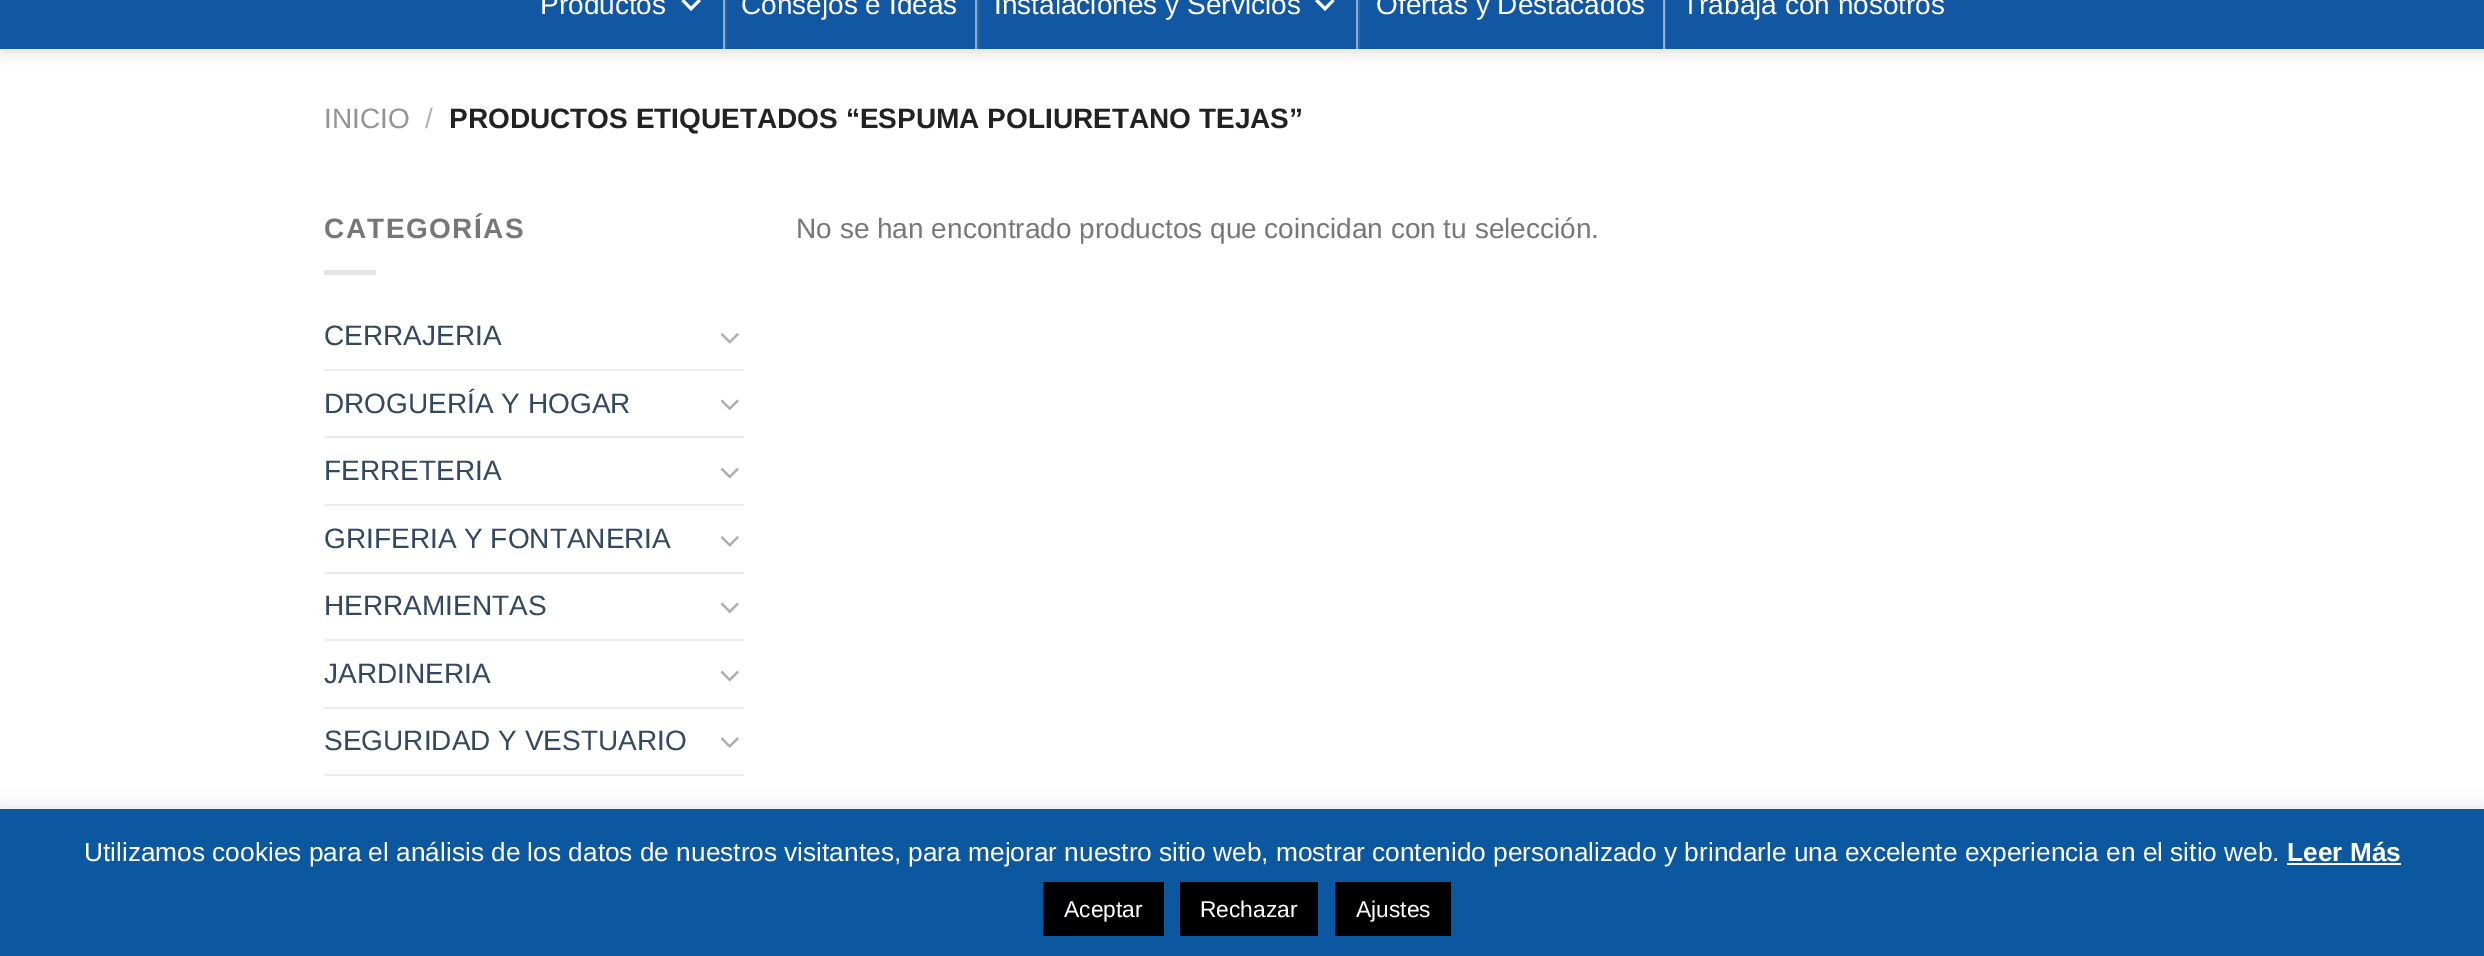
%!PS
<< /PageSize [2484 956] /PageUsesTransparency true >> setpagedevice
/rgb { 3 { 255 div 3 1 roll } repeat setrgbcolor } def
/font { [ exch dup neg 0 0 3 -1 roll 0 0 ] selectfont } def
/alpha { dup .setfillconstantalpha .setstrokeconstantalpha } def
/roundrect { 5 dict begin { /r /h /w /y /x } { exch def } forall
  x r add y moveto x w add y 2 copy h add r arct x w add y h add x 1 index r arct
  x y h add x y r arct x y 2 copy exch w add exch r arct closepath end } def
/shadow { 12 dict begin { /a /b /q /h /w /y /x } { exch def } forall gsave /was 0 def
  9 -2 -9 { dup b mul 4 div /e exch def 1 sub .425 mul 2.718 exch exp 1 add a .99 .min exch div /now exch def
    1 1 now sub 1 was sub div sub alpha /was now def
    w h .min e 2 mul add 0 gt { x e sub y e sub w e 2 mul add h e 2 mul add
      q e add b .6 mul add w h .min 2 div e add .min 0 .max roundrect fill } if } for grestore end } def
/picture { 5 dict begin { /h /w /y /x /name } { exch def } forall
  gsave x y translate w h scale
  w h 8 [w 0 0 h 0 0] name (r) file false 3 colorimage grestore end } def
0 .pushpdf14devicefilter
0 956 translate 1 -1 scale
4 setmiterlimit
255 255 255 rgb
0 0 2484 956 rectfill
0 0 0 rgb
2 -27 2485 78 0 9 0.15 shadow
17 87 162 rgb
0 0 2484 49 rectfill
138 173 209 rgb
1663 0 1 49 rectfill
255 255 255 rgb
684 -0.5 moveto 691 6.5 lineto 698 -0.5 lineto 701 1 lineto 691 11 lineto 681.5 1 lineto closepath fill
[
  [725 0 2 49 41 104 171]
  [723 0 2 49 137 172 209]
  [977 0 2 49 41 104 171]
  [975 0 2 49 137 172 209]
] { aload pop rgb rectfill } forall
255 255 255 rgb
1318 -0.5 moveto 1325 6.5 lineto 1332 -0.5 lineto 1334.5 1 lineto 1325 11 lineto 1315 1 lineto closepath fill
[
  [1358 0 2 49 41 104 171]
  [1356 0 2 49 137 172 209]
  [1665 0 1 49 41 104 171]
  [1664 0 1 49 150 181 214]
  [324 270 52 5 230 230 230]
] { aload pop rgb rectfill } forall
(img/1.rgb) 720 333 19 11 picture
236 236 236 rgb
324 369 420 2 rectfill
(img/2.rgb) 720 399 19 12 picture
324 436 420 2 rectfill
(img/3.rgb) 720 467 19 12 picture
324 504 420 2 rectfill
(img/1.rgb) 720 536 19 11 picture
324 572 420 2 rectfill
(img/2.rgb) 720 602 19 12 picture
324 639 420 2 rectfill
(img/3.rgb) 720 670 19 12 picture
324 707 420 2 rectfill
(img/4.rgb) 720 737 19 11 picture
324 774 420 2 rectfill
172 171 171 rgb
0 807 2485 149 0 9 0.3 shadow
[
  [0 809 2484 147 11 87 160]
  [2287 863 114 2 255 255 255]
  [1043 882 121 54 0 0 0]
  [1180 882 138 54 0 0 0]
  [1335 882 116 54 0 0 0]
] { aload pop rgb rectfill } forall
/LiberationSans-Regular 28 font
255 255 255 rgb
[
  [(Productos) 540 14]
  [(Consejos e Ideas) 741 14]
  [(Instalaciones y Servicios) 994 14]
  [(Ofertas y Destacados) 1376 14]
  [(Trabaja con nosotros) 1682 14]
] { aload pop moveto show } forall
148 148 148 rgb
324 128 moveto (INICIO) show
178 178 178 rgb
425 128 moveto (/) show
/LiberationSans-Bold 28 font
34 34 34 rgb
449 128 moveto (PRODUCTOS ETIQUETADOS “ESPUMA POLIURETANO TEJAS”) show
119 119 119 rgb
324 238 moveto 1.4 0 (CATEGORÍAS) ashow
/LiberationSans-Regular 28 font
51 72 98 rgb
[
  [(CERRAJERIA) 324 345]
  [(DROGUERÍA Y HOGAR) 324 413]
  [(FERRETERIA) 324 480]
  [(GRIFERIA Y FONTANERIA) 324 548]
  [(HERRAMIENTAS) 324 615]
  [(JARDINERIA) 324 683]
  [(SEGURIDAD Y VESTUARIO) 324 750]
] { aload pop moveto show } forall
119 119 119 rgb
796 238 moveto (No se han encontrado productos que coincidan con tu selección.) show
/LiberationSans-Regular 26.25 font
255 255 255 rgb
84 861 moveto (Utilizamos cookies para el análisis de los datos de nuestros visitantes, para mejorar nuestro sitio web, mostrar contenido personalizado y brindarle una excelente experiencia en el sitio web.) show
/LiberationSans-Bold 26.25 font
2287 861 moveto (Leer Más) show
/LiberationSans-Regular 22.75 font
[
  [(Aceptar) 1064 917]
  [(Rechazar) 1200 917]
  [(Ajustes) 1356 917]
] { aload pop moveto show } forall
.poppdf14devicefilter showpage
